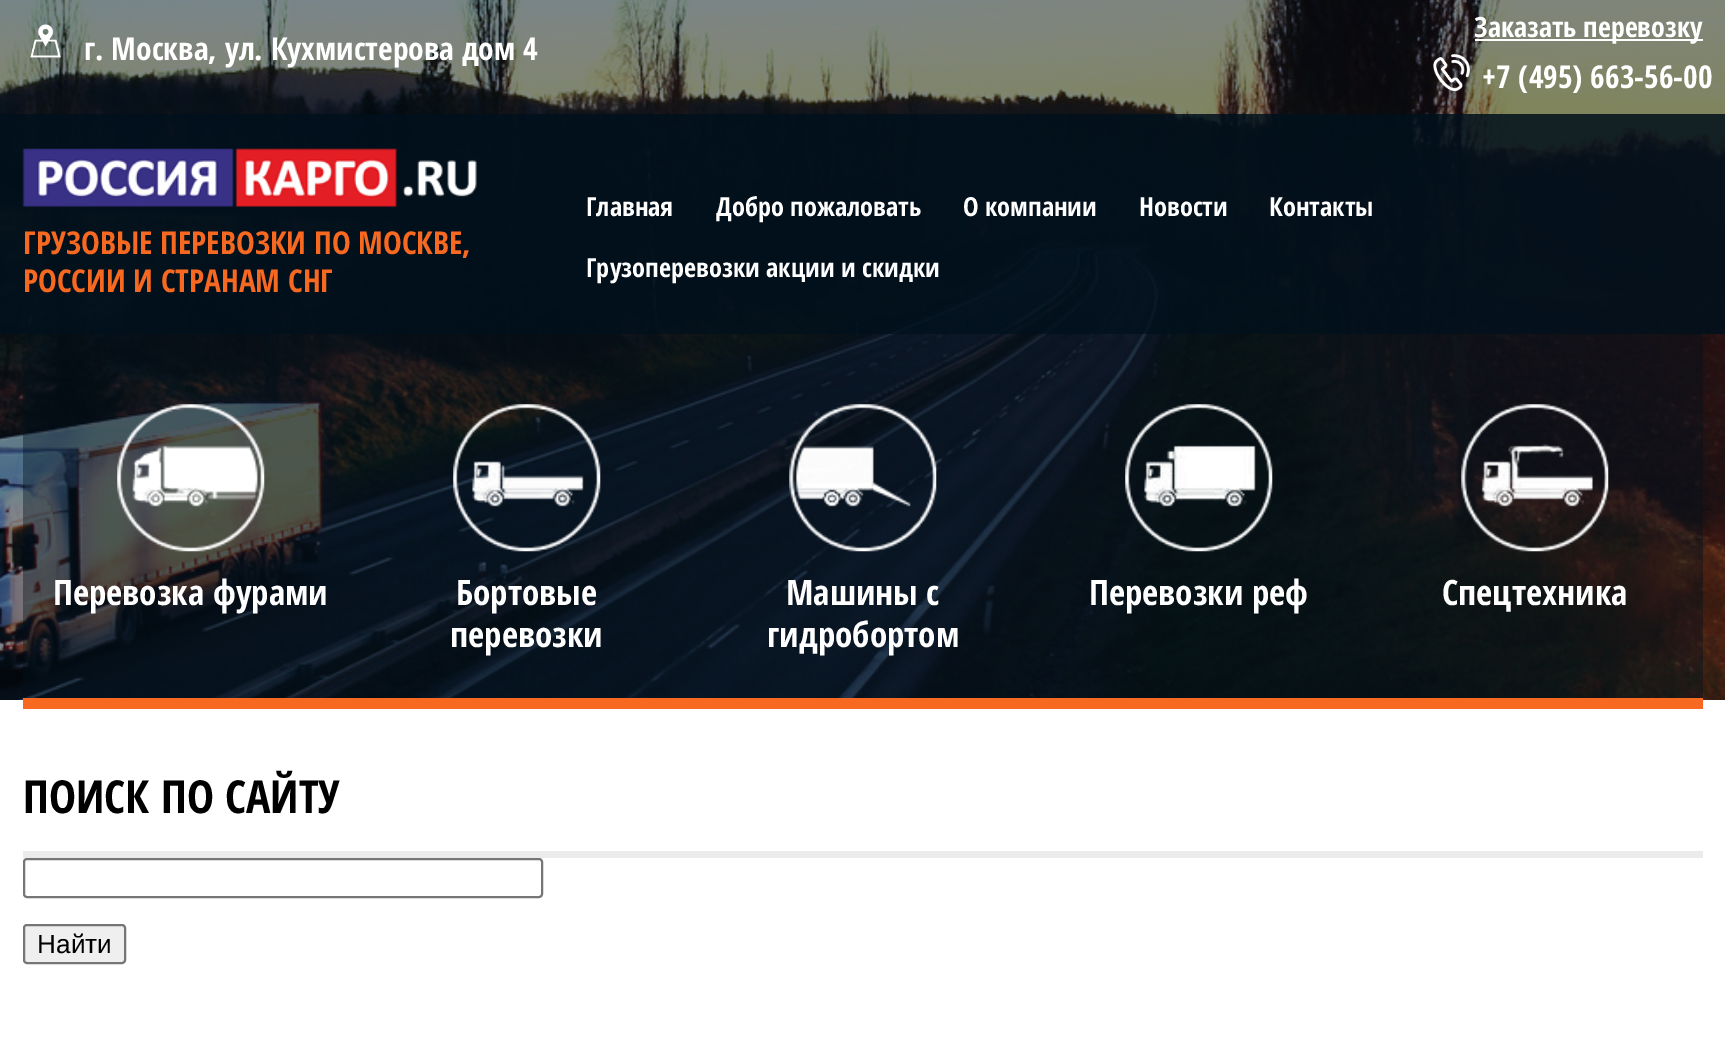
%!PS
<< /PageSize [1725 1055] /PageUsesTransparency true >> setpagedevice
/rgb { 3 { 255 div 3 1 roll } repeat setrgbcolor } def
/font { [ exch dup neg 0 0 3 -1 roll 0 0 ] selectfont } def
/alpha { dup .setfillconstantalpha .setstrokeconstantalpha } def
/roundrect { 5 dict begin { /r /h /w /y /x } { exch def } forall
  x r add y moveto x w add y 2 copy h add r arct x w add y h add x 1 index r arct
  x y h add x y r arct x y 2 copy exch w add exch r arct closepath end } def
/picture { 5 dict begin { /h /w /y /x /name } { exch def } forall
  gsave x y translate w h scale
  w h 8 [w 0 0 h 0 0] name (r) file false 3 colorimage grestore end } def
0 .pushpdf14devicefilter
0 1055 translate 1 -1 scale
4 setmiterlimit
255 255 255 rgb
0 0 1725 1055 rectfill
(img/1.rgb) 0 0 1725 700 picture
(img/2.rgb) 30 24 31 34 picture
1475 39 228 2 rectfill
(img/3.rgb) 1433 54 37 37 picture
0.85 alpha
0 16 28 rgb
0 114 1725 220 rectfill
1 alpha
(img/4.rgb) 22 148 455 59 picture
0.4 alpha
23 334 1680 364 rectfill
1 alpha
247 104 32 rgb
23 698 1680 11 rectfill
(img/5.rgb) 117 404 148 148 picture
(img/6.rgb) 453 404 148 148 picture
(img/7.rgb) 789 404 148 148 picture
(img/8.rgb) 1125 404 148 148 picture
(img/9.rgb) 1461 404 148 148 picture
235 235 235 rgb
23 851 1680 7 rectfill
118 118 118 rgb
2 setlinewidth
24 859 518 38 3 roundrect stroke
239 239 239 rgb
24 925 101 38 3 roundrect gsave fill grestore
118 118 118 rgb
stroke
/OpenSansCondensed-Bold 31.5 font
255 255 255 rgb
84 60 moveto (г. Москва, ул. Кухмистерова дом 4) show
/OpenSansCondensed-Bold 28 font
1474 37 moveto (Заказать перевозку) show
/OpenSansCondensed-Bold 31.5 font
1482 88 moveto (+7 \(495\) 663-56-00) show
247 104 32 rgb
23 254 moveto (ГРУЗОВЫЕ ПЕРЕВОЗКИ ПО МОСКВЕ,) show
23 292 moveto (РОССИИ И СТРАНАМ СНГ) show
/OpenSansCondensed-Bold 26.25 font
255 255 255 rgb
[
  [(Главная) 586 216]
  [(Добро пожаловать) 716 216]
  [(О компании) 963 216]
  [(Новости) 1139 216]
  [(Контакты) 1269 216]
  [(Грузоперевозки акции и скидки) 586 277]
] { aload pop moveto show } forall
/OpenSansCondensed-Bold 35 font
[
  [(Перевозка фурами) 53 605]
  [(Бортовые) 456 605]
  [(перевозки) 450 647]
  [(Машины с) 786 605]
  [(гидробортом) 767 647]
  [(Перевозки реф) 1089 605]
  [(Спецтехника) 1442 605]
] { aload pop moveto show } forall
/OpenSansCondensed-Bold 45.5 font
0 0 0 rgb
23 813 moveto (ПОИСК ПО САЙТУ) show
/LiberationSans-Regular 26.25 font
37 953 moveto (Найти) show
.poppdf14devicefilter showpage
